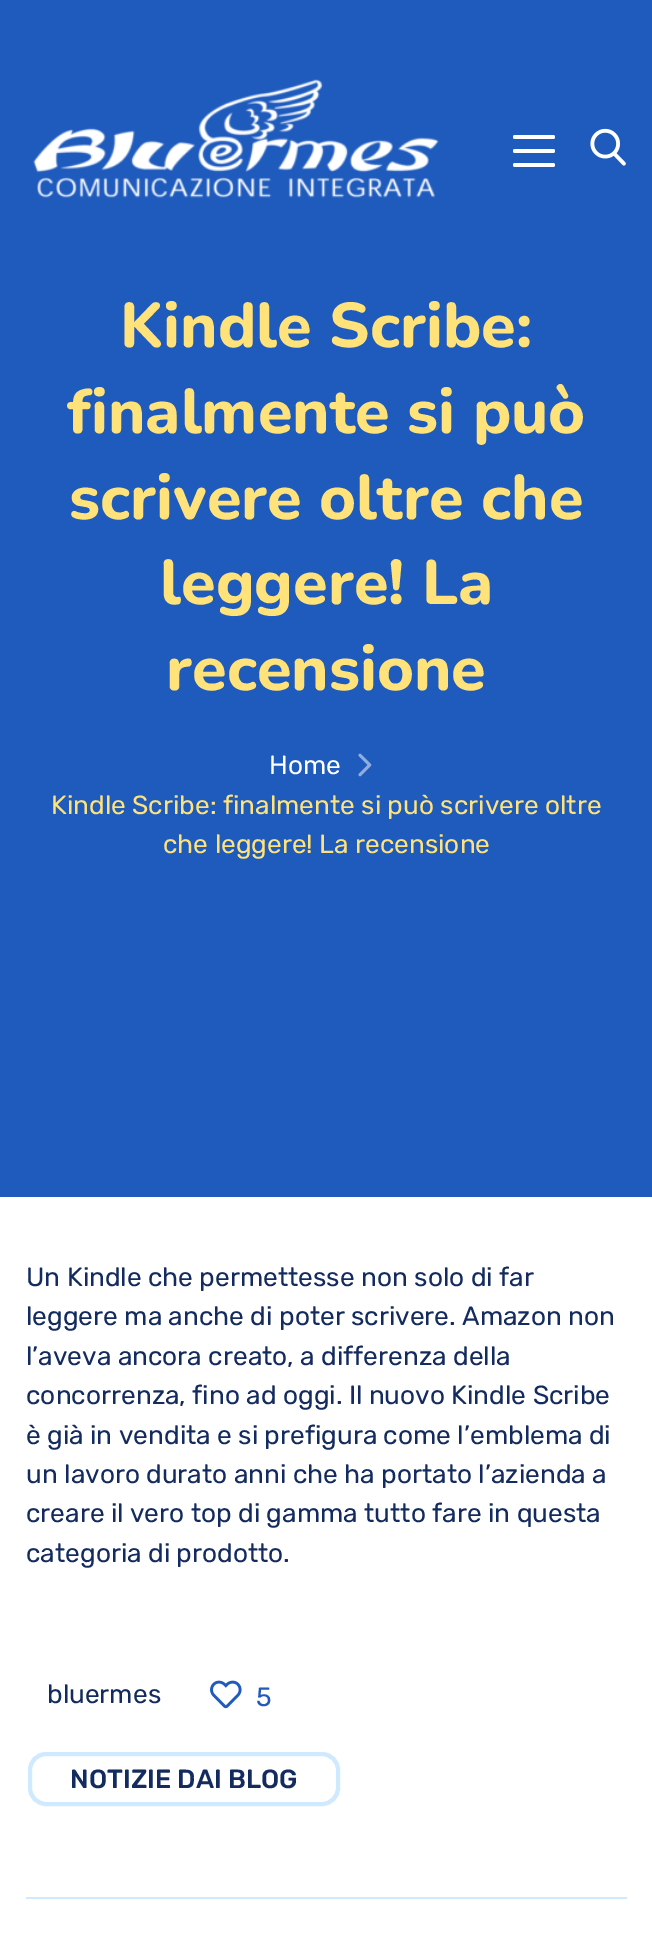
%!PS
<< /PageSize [652 1954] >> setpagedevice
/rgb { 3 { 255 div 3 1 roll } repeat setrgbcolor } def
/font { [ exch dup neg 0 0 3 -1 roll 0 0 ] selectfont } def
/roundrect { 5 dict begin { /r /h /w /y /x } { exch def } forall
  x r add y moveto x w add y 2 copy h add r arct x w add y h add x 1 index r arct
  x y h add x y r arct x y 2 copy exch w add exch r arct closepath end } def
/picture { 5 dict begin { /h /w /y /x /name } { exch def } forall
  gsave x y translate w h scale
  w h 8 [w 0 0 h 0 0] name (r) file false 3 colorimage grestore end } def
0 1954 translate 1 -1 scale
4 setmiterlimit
255 255 255 rgb
0 0 652 1954 rectfill
31 91 189 rgb
0 0 652 1197 rectfill
(img/1.rgb) 33 79 406 119 picture
255 255 255 rgb
513 149 42 4 2 roundrect fill
513 135 42 4 2 roundrect fill
513 163 42 4 2 roundrect fill
(img/2.rgb) 590 128 36 38 picture
(img/3.rgb) 358 753 14 24 picture
(img/4.rgb) 210 1680 32 29 picture
207 233 255 rgb
4 setlinewidth
30 1754 308 50 16 roundrect stroke
26 1897 601 2 rectfill
/Nunito-ExtraBold 63 font
255 226 122 rgb
[
  [(Kindle Scribe:) 120 347]
  [(finalmente si può) 67 433]
  [(scrivere oltre che) 69 519]
  [(leggere! La) 160 604]
  [(recensione) 166 690]
] { aload pop moveto show } forall
/Rubik-Regular 26.25 font
255 255 255 rgb
269 774 moveto (Home) show
255 226 122 rgb
51 814 moveto (Kindle Scribe: finalmente si può scrivere oltre) show
163 853 moveto (che leggere! La recensione) show
20 43 95 rgb
[
  [(Un Kindle che permettesse non solo di far) 26 1286]
  [(leggere ma anche di poter scrivere. Amazon non) 26 1325]
  [(l’aveva ancora creato, a differenza della) 26 1365]
  [(concorrenza, fino ad oggi. Il nuovo Kindle Scribe) 26 1404]
  [(è già in vendita e si prefigura come l’emblema di) 26 1444]
  [(un lavoro durato anni che ha portato l’azienda a) 26 1483]
  [(creare il vero top di gamma tutto fare in questa) 26 1522]
  [(categoria di prodotto.) 26 1562]
  [(bluermes) 47 1703]
] { aload pop moveto show } forall
31 90 188 rgb
256 1706 moveto (5) show
/Rubik-Medium 26.25 font
20 43 95 rgb
70 1788 moveto (NOTIZIE DAI BLOG) show
showpage
